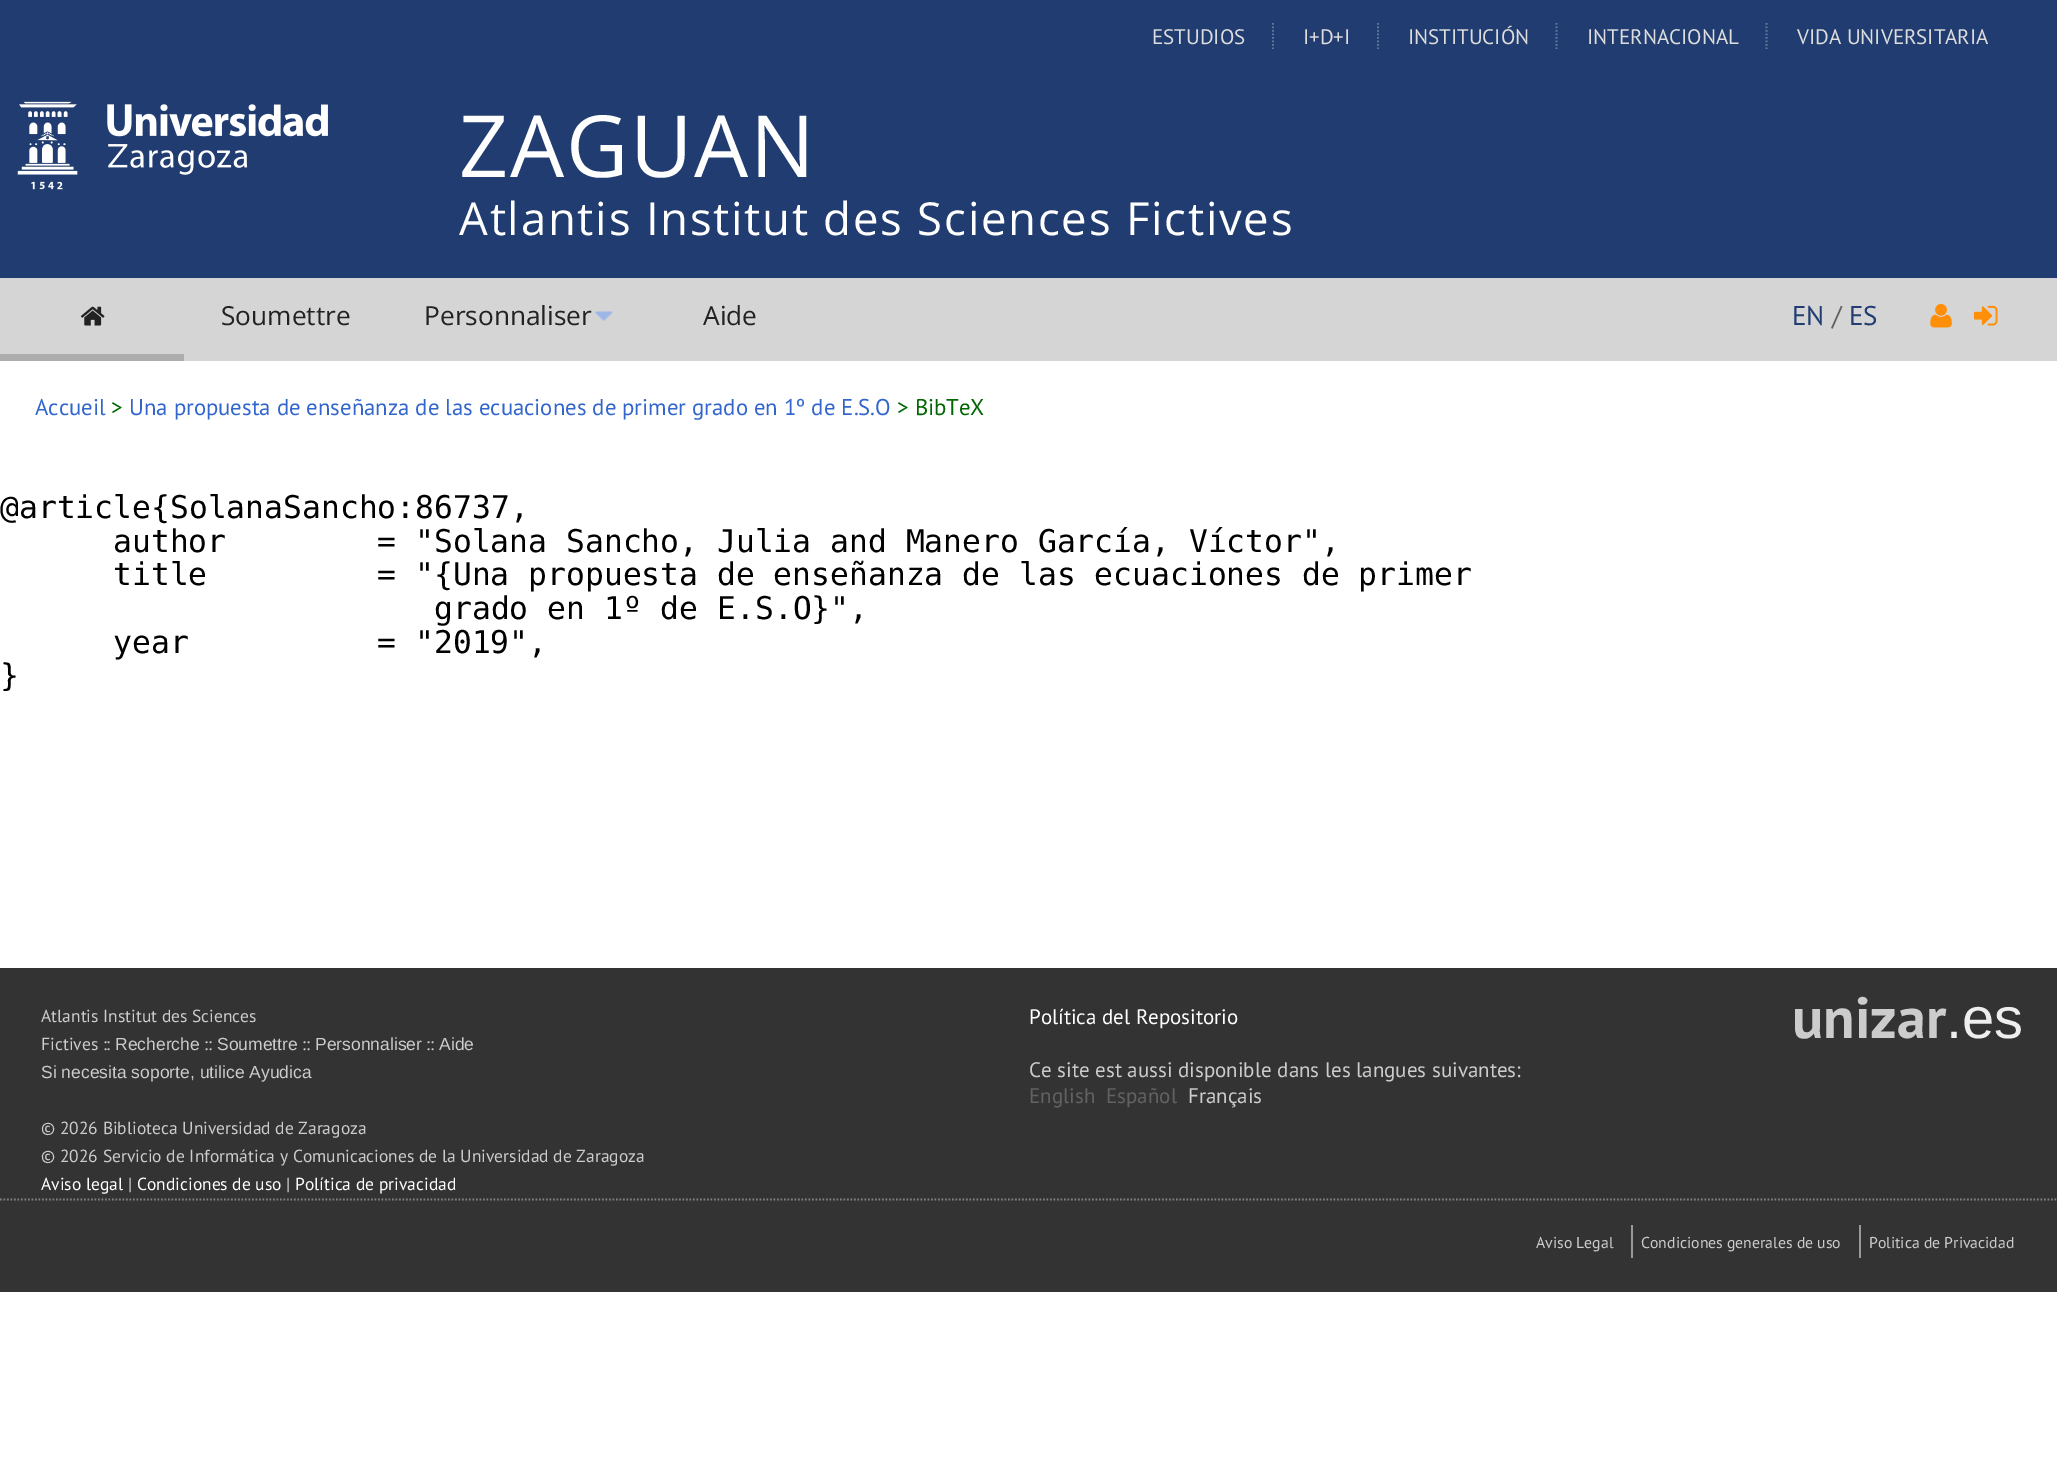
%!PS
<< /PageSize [2057 1462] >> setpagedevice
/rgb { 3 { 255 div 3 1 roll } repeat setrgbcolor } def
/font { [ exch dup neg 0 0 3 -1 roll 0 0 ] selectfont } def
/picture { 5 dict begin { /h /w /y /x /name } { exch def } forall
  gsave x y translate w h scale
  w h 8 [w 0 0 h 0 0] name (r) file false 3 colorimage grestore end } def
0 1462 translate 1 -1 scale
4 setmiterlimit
255 255 255 rgb
0 0 2057 1462 rectfill
33 60 112 rgb
0 0 2057 278 rectfill
100 119 157 rgb
1.8 setlinewidth
[1.75 1.75] 0 setdash
1273 23 moveto 1273 49 lineto stroke
1378 23 moveto 1378 49 lineto stroke
1556.5 23 moveto 1556.5 49 lineto stroke
1766.5 23 moveto 1766.5 49 lineto stroke
(img/1.rgb) 17 101 311 89 picture
213 213 213 rgb
0 278 2057 83 rectfill
173 173 173 rgb
0 354 184 7 rectfill
(img/2.rgb) 80 306 25 20 picture
(img/3.rgb) 594 311 19 10 picture
(img/4.rgb) 1930 304 22 24 picture
(img/5.rgb) 1974 305 24 21 picture
51 51 51 rgb
0 968 2057 324 rectfill
128 128 128 rgb
-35 1199.5 moveto 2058 1199.5 lineto stroke
153 153 153 rgb
1631 1225 2 33 rectfill
1859 1225 2 33 rectfill
/PTSans-Regular 21 font
221 221 221 rgb
[
  [(ESTUDIOS) 1152 44]
  [(I+D+I) 1303 44]
  [(INSTITUCIÓN) 1408 44]
  [(INTERNACIONAL) 1587 44]
  [(VIDA UNIVERSITARIA) 1797 44]
] { aload pop moveto show } forall
/OpenSans-Regular 85.75 font
255 255 255 rgb
459 177 moveto 1.75 0 (ZAGUAN) ashow
/OpenSans-Regular 45.5 font
459 235 moveto 1.75 0 (Atlantis Institut des Sciences Fictives) ashow
/OpenSans-Regular 26.25 font
34 34 34 rgb
[
  [(Soumettre) 221 325]
  [(Personnaliser) 424 325]
  [(Aide) 703 325]
] { aload pop moveto show } forall
/PTSans-Regular 27 font
34 61 114 rgb
1792 325 moveto (EN) show
98 98 98 rgb
1832 325 moveto (/) show
34 61 114 rgb
1849 325 moveto (ES) show
/PTSans-Regular 22.75 font
51 102 204 rgb
35 415 moveto (Accueil) show
0 102 0 rgb
111 415 moveto (>) show
51 102 204 rgb
129 415 moveto (Una propuesta de enseñanza de las ecuaciones de primer grado en 1º de E.S.O) show
0 102 0 rgb
897 415 moveto (> BibTeX) show
/DejaVuSansMono-Regular 31.35 font
0 0 0 rgb
[
  [(@article{SolanaSancho:86737,) 0 518]
  [(author        = "Solana Sancho, Julia and Manero García, Víctor",) 113 552]
  [(title         = "{Una propuesta de enseñanza de las ecuaciones de primer) 113 585]
  [(grado en 1º de E.S.O}",) 434 619]
  [(year          = "2019",) 113 653]
  [(}) 0 686]
] { aload pop moveto show } forall
/PTSans-Regular 17.5 font
204 204 204 rgb
41 1022 moveto (Atlantis Institut des Sciences) show
41 1050 moveto (Fictives ::) show
/LiberationSans-Regular 17.5 font
115 1050 moveto (Recherche) show
/PTSans-Regular 17.5 font
204 1050 moveto (::) show
/LiberationSans-Regular 17.5 font
217 1050 moveto (Soumettre) show
/PTSans-Regular 17.5 font
302 1050 moveto (::) show
/LiberationSans-Regular 17.5 font
315 1050 moveto (Personnaliser) show
/PTSans-Regular 17.5 font
426 1050 moveto (::) show
/LiberationSans-Regular 17.5 font
439 1050 moveto (Aide) show
41 1078 moveto (Si necesita soporte, utilice Ayudica) show
/PTSans-Regular 17.5 font
41 1134 moveto (© 2026 Biblioteca Universidad de Zaragoza) show
41 1162 moveto (© 2026 Servicio de Informática y Comunicaciones de la Universidad de Zaragoza) show
255 255 255 rgb
41 1190 moveto (Aviso legal) show
204 204 204 rgb
128 1190 moveto (|) show
255 255 255 rgb
137 1190 moveto (Condiciones de uso) show
204 204 204 rgb
286 1190 moveto (|) show
255 255 255 rgb
295 1190 moveto (Política de privacidad) show
/PTSans-Regular 21 font
1029 1024 moveto (Política del Repositorio) show
204 204 204 rgb
1029 1077 moveto (Ce site est aussi disponible dans les langues suivantes:) show
98 98 98 rgb
1029 1103 moveto (English) show
1106 1103 moveto (Español) show
204 204 204 rgb
1188 1103 moveto (Français) show
/PTSans-Bold 58 font
1792 1038 moveto (unizar) show
/LiberationSans-Regular 58 font
238 238 238 rgb
1946 1038 moveto (.es) show
/PTSans-Regular 15.75 font
204 204 204 rgb
[
  [(Aviso Legal) 1536 1248]
  [(Condiciones generales de uso) 1641 1248]
  [(Politica de Privacidad) 1869 1248]
] { aload pop moveto show } forall
showpage
